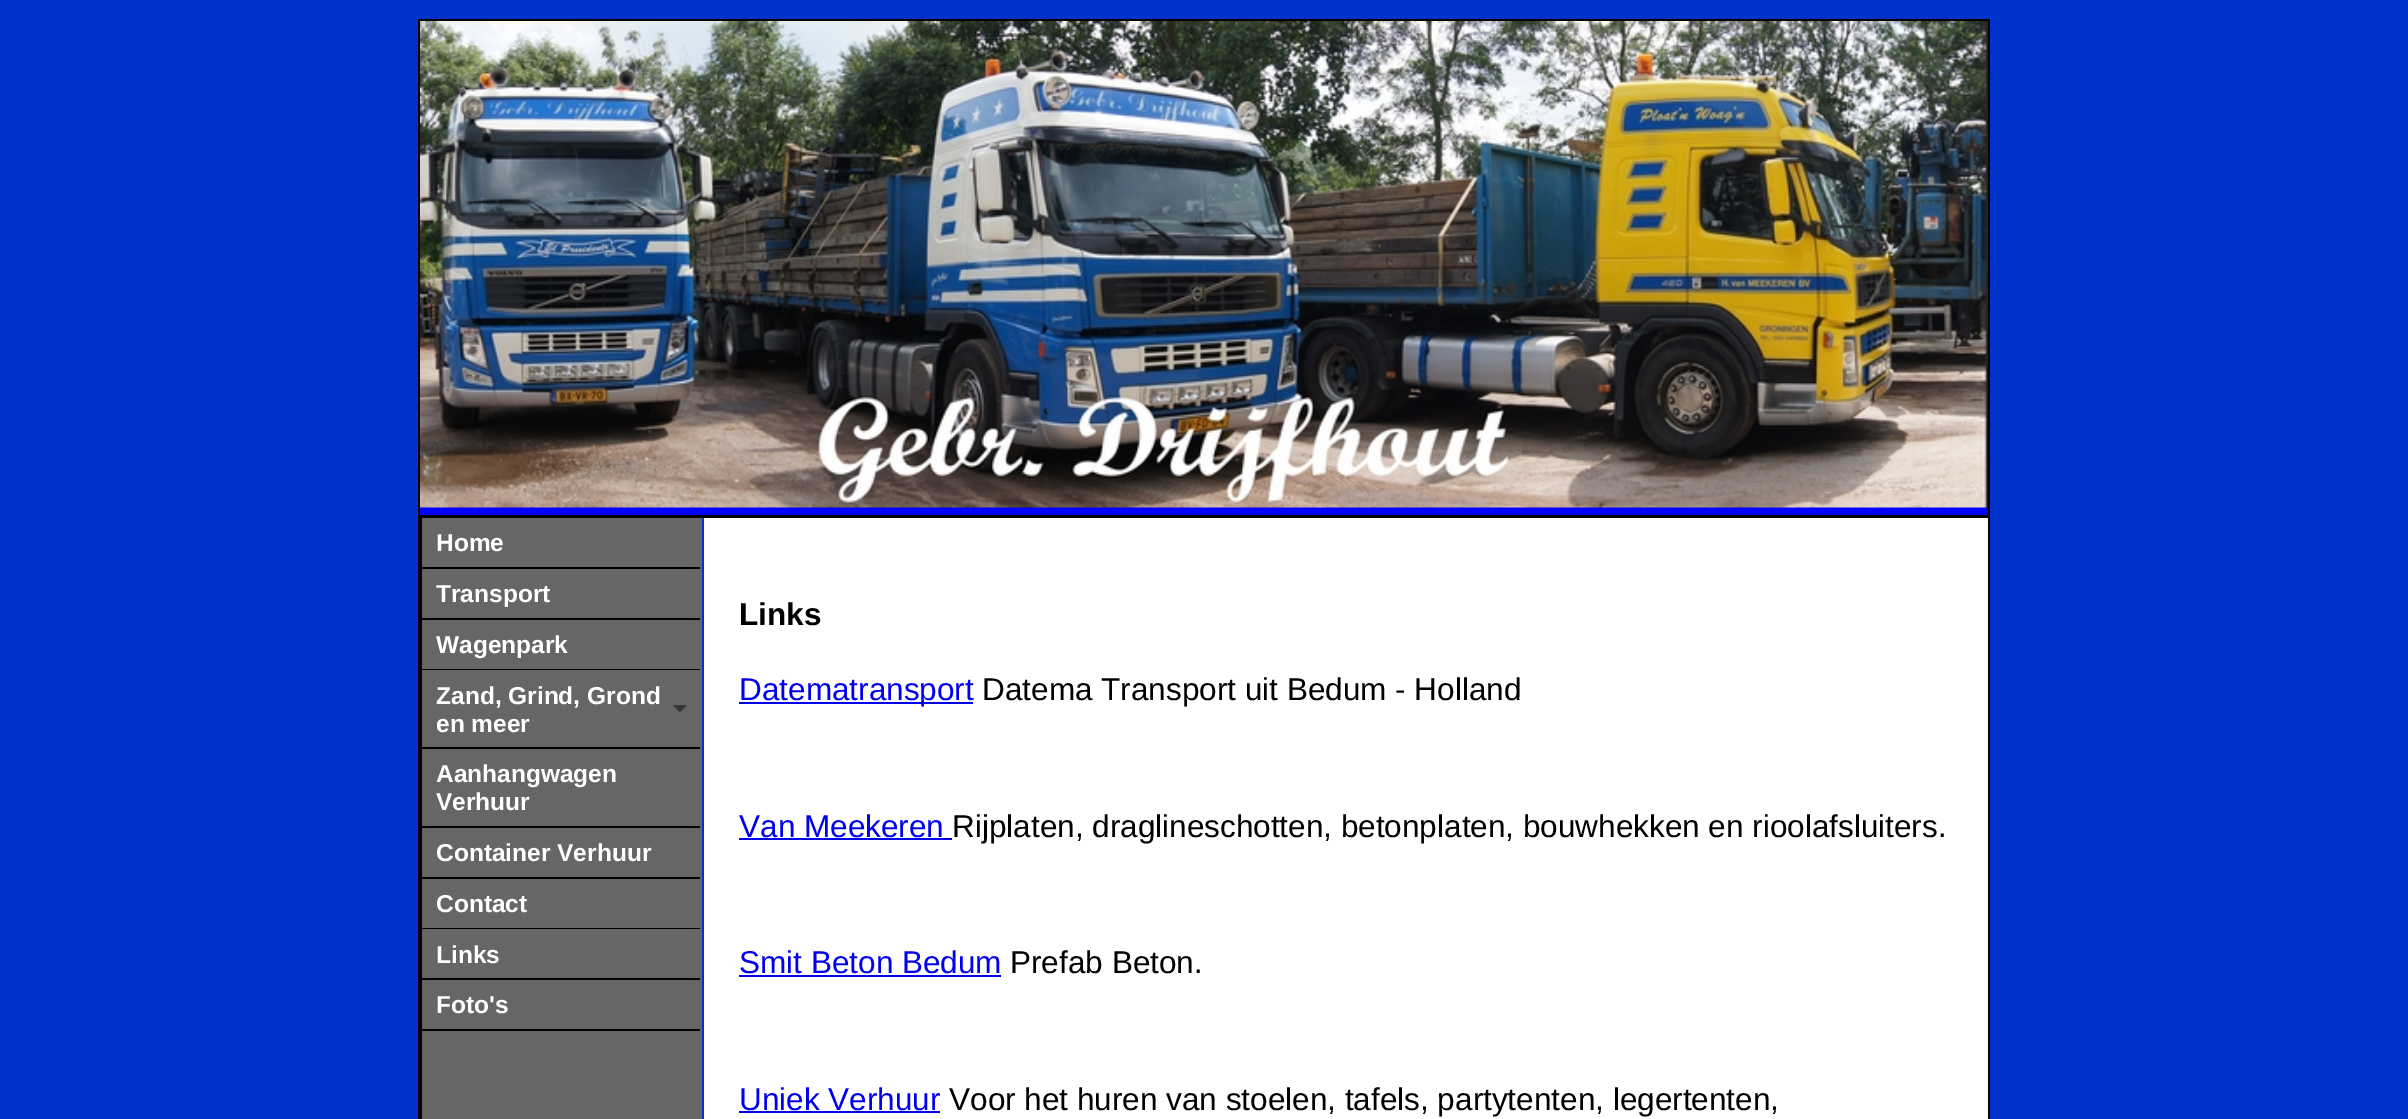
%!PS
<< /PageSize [2408 1119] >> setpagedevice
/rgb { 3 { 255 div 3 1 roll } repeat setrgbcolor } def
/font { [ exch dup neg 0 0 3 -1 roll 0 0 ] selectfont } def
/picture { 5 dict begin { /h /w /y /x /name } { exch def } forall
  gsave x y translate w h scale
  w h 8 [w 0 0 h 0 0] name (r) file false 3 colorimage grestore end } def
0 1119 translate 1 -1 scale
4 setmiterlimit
0 51 204 rgb
0 0 2408 1119 rectfill
0 0 255 rgb
420 507 1568 8 rectfill
(img/1.rgb) 420 21 1568 487 picture
[
  [418 19 1572 2 0 0 0]
  [1988 19 2 496 0 0 0]
  [418 19 2 496 0 0 0]
  [418 515 1572 1 0 0 0]
  [1988 515 2 604 0 0 0]
  [418 515 2 604 0 0 0]
  [420 516 1568 2 0 0 0]
  [420 516 2 603 0 0 0]
  [422 518 280 601 102 102 102]
  [422 567 278 2 0 0 0]
  [422 618 278 2 0 0 0]
  [422 669 278 1 0 0 0]
] { aload pop rgb rectfill } forall
(img/2.rgb) 673 705 13 8 picture
[
  [422 747 278 2 0 0 0]
  [422 826 278 2 0 0 0]
  [422 877 278 2 0 0 0]
  [422 928 278 1 0 0 0]
  [422 978 278 2 0 0 0]
  [422 1029 278 2 0 0 0]
  [704 518 1284 601 255 255 255]
  [739 702 234 2 0 0 238]
  [739 838 213 2 0 0 238]
  [739 975 262 2 0 0 238]
  [739 1111 201 2 0 0 238]
] { aload pop rgb rectfill } forall
/LiberationSans-Bold 24.5 font
255 255 255 rgb
[
  [(Home) 436 551]
  [(Transport) 436 602]
  [(Wagenpark) 436 653]
  [(Zand, Grind, Grond) 436 704]
  [(en meer) 436 732]
  [(Aanhangwagen) 436 782]
  [(Verhuur) 436 810]
  [(Container Verhuur) 436 861]
  [(Contact) 436 912]
  [(Links) 436 963]
  [(Foto's) 436 1013]
] { aload pop moveto show } forall
/LiberationSans-Bold 31.5 font
0 0 0 rgb
739 625 moveto (Links) show
/LiberationSans-Regular 31.5 font
0 0 238 rgb
739 700 moveto (Datematransport) show
0 0 0 rgb
982 700 moveto (Datema Transport uit Bedum - Holland) show
0 0 238 rgb
739 837 moveto (Van Meekeren) show
0 0 0 rgb
952 837 moveto (Rijplaten, draglineschotten, betonplaten, bouwhekken en rioolafsluiters.) show
0 0 238 rgb
739 973 moveto (Smit Beton Bedum) show
0 0 0 rgb
1010 973 moveto (Prefab Beton.) show
0 0 238 rgb
739 1110 moveto (Uniek Verhuur) show
0 0 0 rgb
949 1110 moveto (Voor het huren van stoelen, tafels, partytenten, legertenten,) show
showpage
